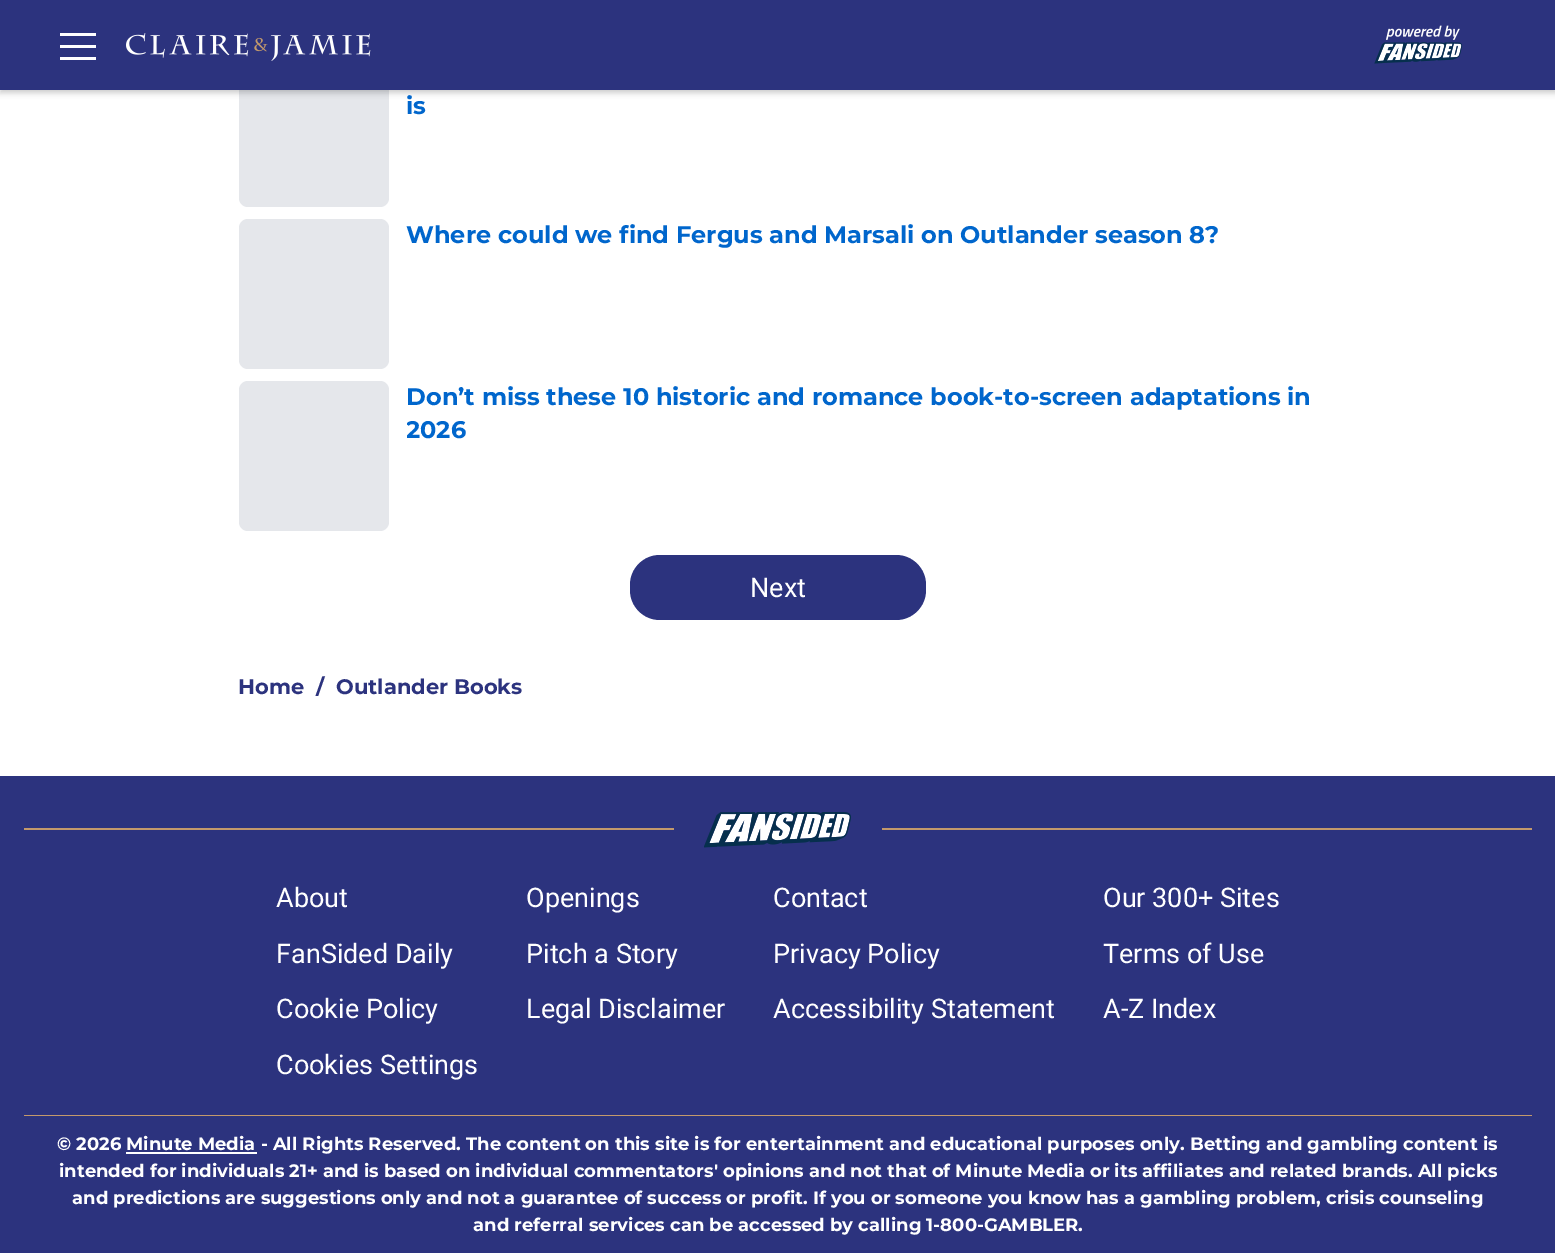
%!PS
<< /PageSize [1555 1253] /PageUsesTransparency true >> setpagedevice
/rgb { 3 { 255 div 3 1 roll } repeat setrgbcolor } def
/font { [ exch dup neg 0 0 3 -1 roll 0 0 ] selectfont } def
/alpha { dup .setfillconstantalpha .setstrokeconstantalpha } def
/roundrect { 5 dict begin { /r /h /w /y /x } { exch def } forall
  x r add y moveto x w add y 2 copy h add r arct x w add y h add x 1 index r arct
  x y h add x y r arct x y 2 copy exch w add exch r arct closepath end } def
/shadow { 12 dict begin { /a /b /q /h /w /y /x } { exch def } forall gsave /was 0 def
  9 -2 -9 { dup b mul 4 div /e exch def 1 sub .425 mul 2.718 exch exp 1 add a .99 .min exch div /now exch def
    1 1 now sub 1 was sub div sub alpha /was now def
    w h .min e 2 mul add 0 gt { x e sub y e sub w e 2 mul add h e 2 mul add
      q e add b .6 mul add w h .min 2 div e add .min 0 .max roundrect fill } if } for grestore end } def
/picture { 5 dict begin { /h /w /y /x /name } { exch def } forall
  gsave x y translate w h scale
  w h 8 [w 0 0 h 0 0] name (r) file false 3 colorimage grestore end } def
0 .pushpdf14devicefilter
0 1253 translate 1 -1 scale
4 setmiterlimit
255 255 255 rgb
0 0 1555 1253 rectfill
229 231 235 rgb
239 57 150 150 9 roundrect fill
0 0 0 rgb
0 3 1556 90 0 3 0.2 shadow
[
  [0 0 1555 90 44 51 126]
  [60 33 36 3 255 255 255]
  [60 45 36 3 255 255 255]
  [60 57 36 3 255 255 255]
] { aload pop rgb rectfill } forall
(img/1.rgb) 126 33 245 28 picture
(img/2.rgb) 1374 25 89 39 picture
229 231 235 rgb
239 219 150 150 9 roundrect fill
239 381 150 150 9 roundrect fill
44 51 126 rgb
630 555 296 65 30 roundrect fill
0 776 1555 477 rectfill
195 153 107 rgb
24 828 650 2 rectfill
(img/3.rgb) 704 812 147 36 picture
[
  [882 828 650 2 195 153 107]
  [24 1115 1508 1 195 153 107]
  [126 1152 131 2 255 255 255]
] { aload pop rgb rectfill } forall
/Montserrat-Thin 24 font
0 102 204 rgb
[
  [(is) 406 114]
  [(Where could we find Fergus and Marsali on Outlander season 8?) 406 243]
  [(Don’t miss these 10 historic and romance book-to-screen adaptations in) 406 405]
] { aload pop moveto show } forall
gsave
407 381 912 68 rectclip
406 438 moveto (2026) show
grestore
/Roboto-Regular 27 font
255 255 255 rgb
750 597 moveto (Next) show
/Montserrat-Thin 21 font
44 51 126 rgb
[
  [(Home) 238 694]
  [(/) 316 694]
  [(Outlander Books) 336 694]
] { aload pop moveto show } forall
/Roboto-Regular 27 font
255 255 255 rgb
[
  [(About) 276 907]
  [(Openings) 526 907]
  [(Contact) 773 907]
  [(Our 300+ Sites) 1103 907]
  [(FanSided Daily) 276 963]
  [(Pitch a Story) 526 963]
  [(Privacy Policy) 773 963]
  [(Terms of Use) 1103 963]
  [(Cookie Policy) 276 1018]
  [(Legal Disclaimer) 526 1018]
  [(Accessibility Statement) 773 1018]
  [(A-Z Index) 1103 1018]
  [(Cookies Settings) 276 1074]
] { aload pop moveto show } forall
/Montserrat-Thin 18 font
[
  [(© 2026 Minute Media - All Rights Reserved. The content on this site is for entertainment and educational purposes only. Betting and gambling content is) 57 1150]
  [(intended for individuals 21+ and is based on individual commentators' opinions and not that of Minute Media or its affiliates and related brands. All picks) 59 1177]
  [(and predictions are suggestions only and not a guarantee of success or profit. If you or someone you know has a gambling problem, crisis counseling) 72 1204]
  [(and referral services can be accessed by calling 1-800-GAMBLER.) 473 1231]
] { aload pop moveto show } forall
.poppdf14devicefilter showpage
